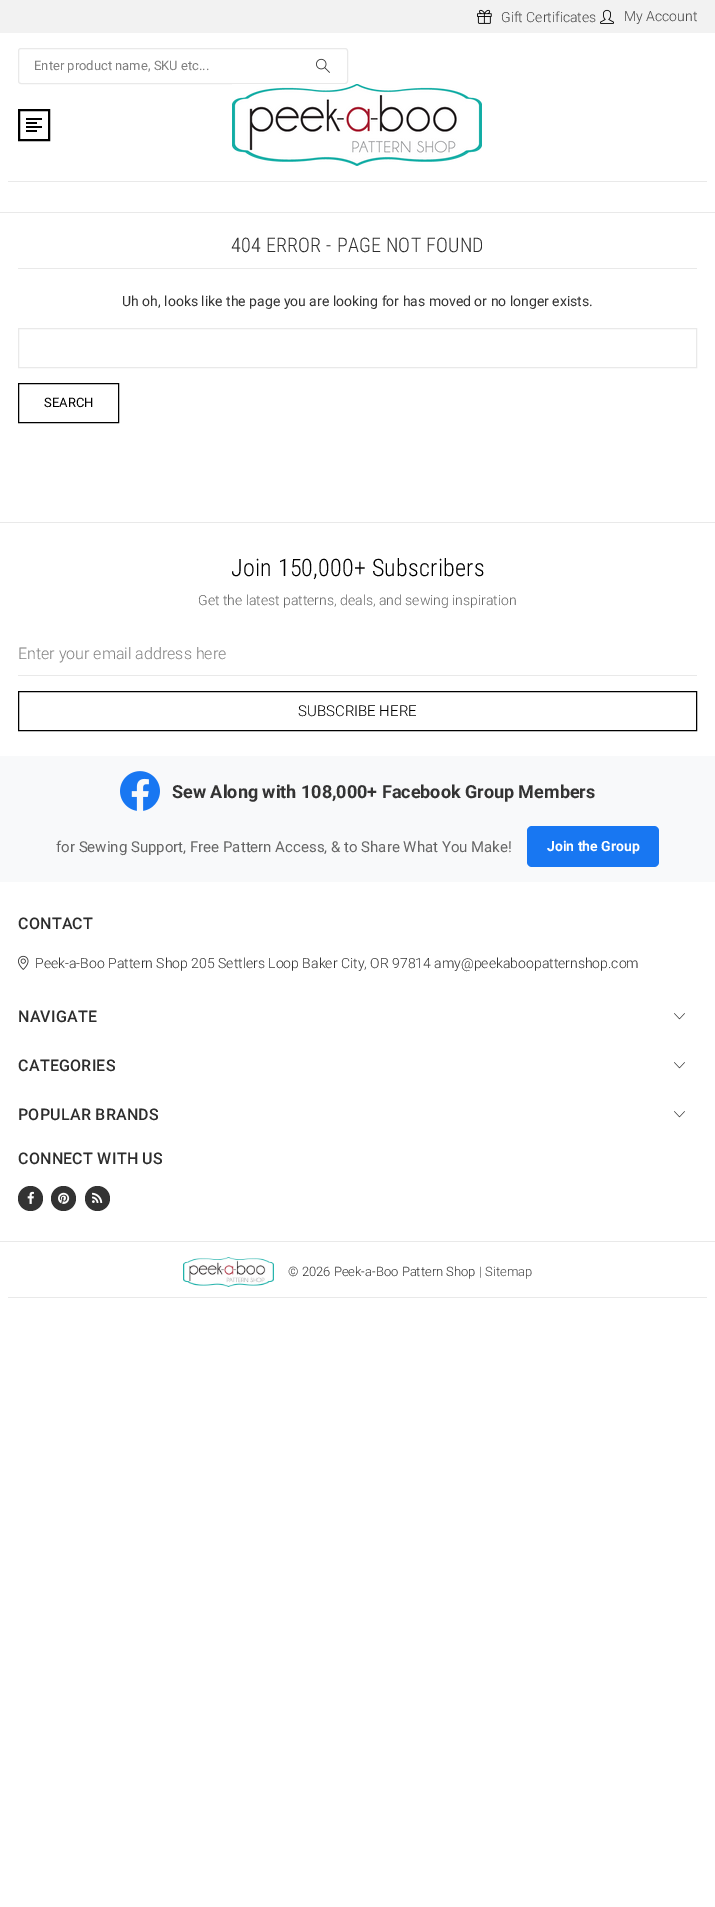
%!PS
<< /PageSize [715 1907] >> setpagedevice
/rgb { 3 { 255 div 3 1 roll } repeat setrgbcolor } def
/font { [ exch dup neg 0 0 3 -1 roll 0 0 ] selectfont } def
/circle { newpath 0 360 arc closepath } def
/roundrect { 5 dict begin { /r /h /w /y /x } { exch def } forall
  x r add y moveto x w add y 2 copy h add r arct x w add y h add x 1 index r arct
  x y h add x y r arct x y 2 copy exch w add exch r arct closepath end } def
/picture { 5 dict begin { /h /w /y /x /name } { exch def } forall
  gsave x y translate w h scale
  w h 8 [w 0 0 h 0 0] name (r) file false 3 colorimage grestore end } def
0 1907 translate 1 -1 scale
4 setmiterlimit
255 255 255 rgb
0 0 715 1907 rectfill
233 233 233 rgb
0 212 715 1 rectfill
242 242 242 rgb
0 0 715 33 rectfill
(img/1.rgb) 477 9 15 15 picture
(img/2.rgb) 600 9 14 15 picture
233 233 233 rgb
18.5 48.5 329 35 2.5 roundrect stroke
(img/3.rgb) 316 58 14 15 picture
8 181 699 1 rectfill
0 0 0 rgb
2 setlinewidth
19 110 30 30 rectstroke
[
  [26 118 16 2 0 0 0]
  [26 126 16 2 0 0 0]
  [26 122 11 2 0 0 0]
  [26 130 11 2 0 0 0]
] { aload pop rgb rectfill } forall
(img/4.rgb) 232 84 250 82 picture
233 233 233 rgb
18 268 679 1 rectfill
1 setlinewidth
18.5 328.5 678 39 rectstroke
0 0 0 rgb
18.5 383.5 100 39 rectstroke
233 233 233 rgb
0 522 715 1 rectfill
18 675 679 1 rectfill
0 0 0 rgb
18.5 691.5 678 39 rectstroke
248 249 250 rgb
0 756 715 126 rectfill
(img/5.rgb) 120 771 40 40 picture
24 119 242 rgb
527 826 132 41 5 roundrect fill
(img/6.rgb) 18 955 11 15 picture
(img/7.rgb) 674 1013 11 7 picture
(img/7.rgb) 674 1062 11 7 picture
(img/7.rgb) 674 1111 11 7 picture
51 51 51 rgb
30.5 1198.5 12.5 circle fill
(img/8.rgb) 27 1191 7 13 picture
63.5 1198.5 12.5 circle fill
(img/9.rgb) 58 1192 12 12 picture
97.5 1198.5 12.5 circle fill
(img/10.rgb) 92 1192 11 11 picture
233 233 233 rgb
0 1241 715 1 rectfill
8 1297 699 1 rectfill
(img/11.rgb) 183 1257 91 30 picture
/Roboto-Light 14 font
71 71 71 rgb
501 22 moveto (Gift Certificates) show
624 21 moveto (My Account) show
/Roboto-Regular 13 font
128 128 128 rgb
34 70 moveto (Enter product name, SKU etc...) show
/RobotoCondensed-Light 20 font
45 45 45 rgb
231 252 moveto 0.25 0 (404 ERROR - PAGE NOT FOUND) ashow
/Roboto-Regular 14 font
51 51 51 rgb
122 306 moveto (Uh oh, looks like the page you are looking for has moved or no longer exists.) show
/Roboto-Regular 13 font
0 0 0 rgb
44 407 moveto (SEARCH) show
/RobotoCondensed-Light 24 font
231 576 moveto 0.25 0 (Join 150,000+ Subscribers) ashow
/Roboto-Light 14 font
102 102 102 rgb
198 605 moveto (Get the latest patterns, deals, and sewing inspiration) show
/Roboto-Light 16 font
128 128 128 rgb
18 659 moveto (Enter your email address here) show
/Roboto-Light 15 font
0 0 0 rgb
298 716 moveto (SUBSCRIBE HERE) show
/Roboto-Bold 18 font
51 51 51 rgb
172 798 moveto (Sew Along with 108,000+ Facebook Group Members) show
/Roboto-Regular 15 font
102 102 102 rgb
56 852 moveto (for Sewing Support, Free Pattern Access, & to Share What You Make!) show
/Roboto-Bold 14 font
255 255 255 rgb
547 851 moveto (Join the Group) show
/Roboto-Medium 16 font
45 45 45 rgb
18 929 moveto 0.25 0 (CONTACT) ashow
/Roboto-Light 14 font
51 51 51 rgb
35 968 moveto (Peek-a-Boo Pattern Shop 205 Settlers Loop Baker City, OR 97814 amy@peekaboopatternshop.com) show
/Roboto-Medium 16 font
45 45 45 rgb
18 1022 moveto 0.25 0 (NAVIGATE) ashow
18 1071 moveto 0.25 0 (CATEGORIES) ashow
18 1120 moveto 0.25 0 (POPULAR BRANDS) ashow
18 1164 moveto 0.25 0 (CONNECT WITH US) ashow
/Roboto-Light 13 font
51 51 51 rgb
288 1276 moveto (© 2026 Peek-a-Boo Pattern Shop |) show
71 71 71 rgb
485 1276 moveto (Sitemap) show
showpage
